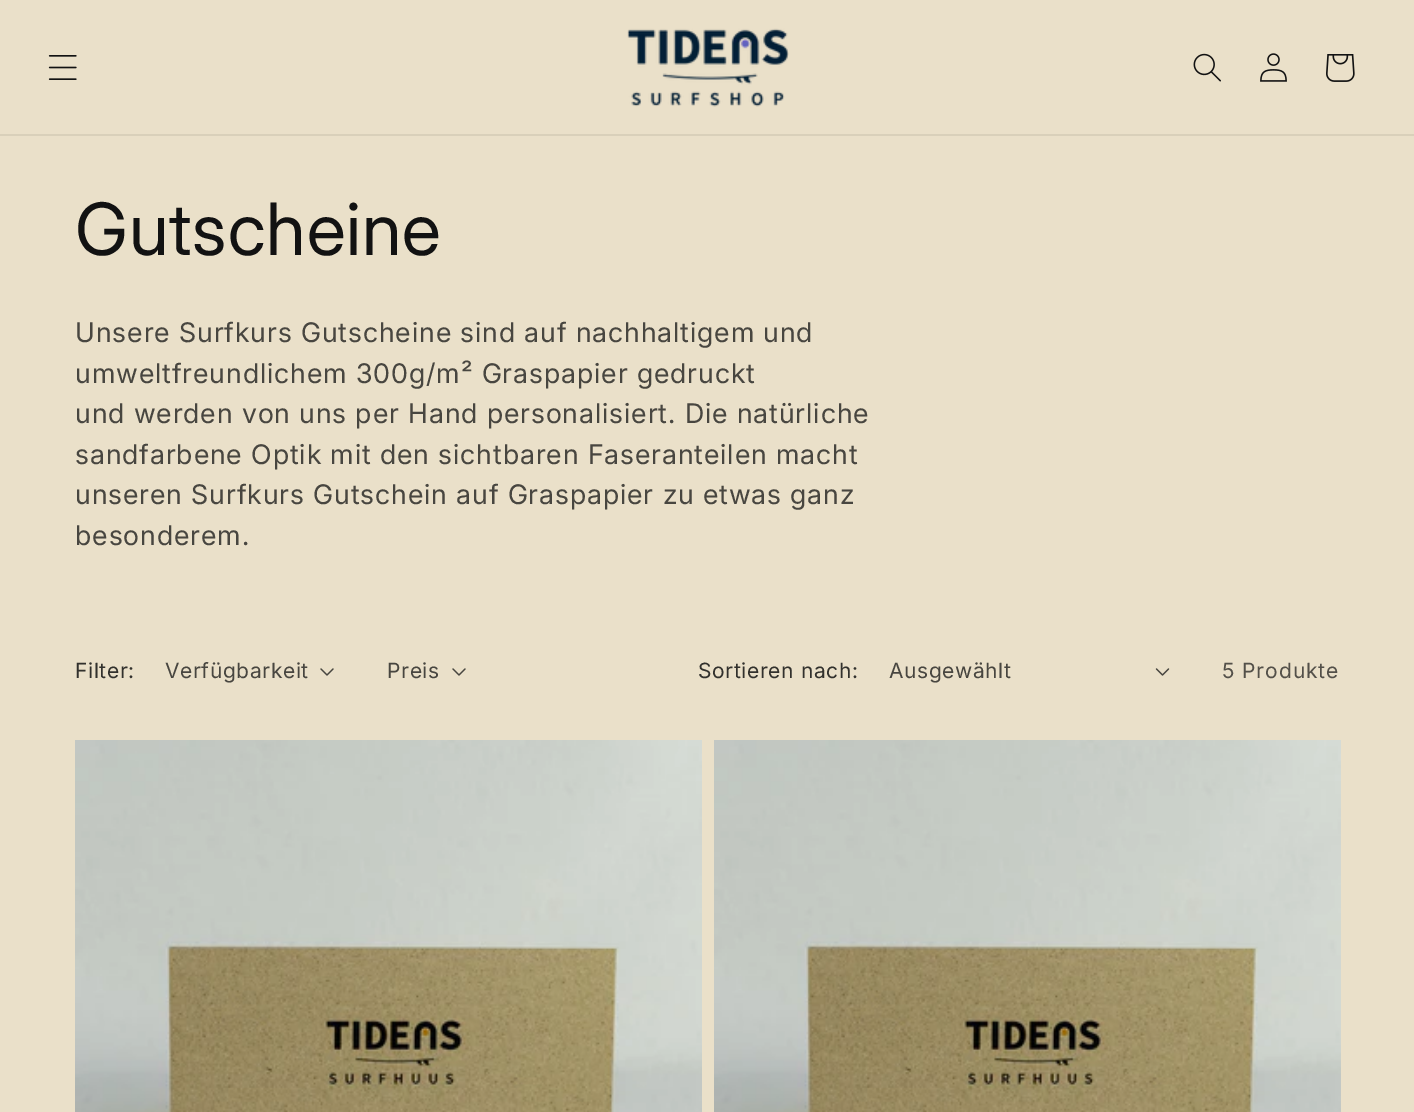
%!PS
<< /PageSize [1414 1112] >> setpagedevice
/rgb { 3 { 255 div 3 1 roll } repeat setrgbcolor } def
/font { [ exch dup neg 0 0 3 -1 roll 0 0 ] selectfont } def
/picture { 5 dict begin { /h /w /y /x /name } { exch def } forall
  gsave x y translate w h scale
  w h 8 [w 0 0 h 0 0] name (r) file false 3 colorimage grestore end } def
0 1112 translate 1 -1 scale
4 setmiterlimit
234 224 201 rgb
0 0 1414 1112 rectfill
217 208 186 rgb
0 134 1414 2 rectfill
(img/1.rgb) 48 55 29 25 picture
(img/2.rgb) 627 28 162 79 picture
(img/3.rgb) 1193 53 28 29 picture
(img/4.rgb) 1260 53 27 29 picture
(img/5.rgb) 1326 54 29 28 picture
(img/6.rgb) 320 668 14 8 picture
(img/6.rgb) 452 668 14 8 picture
(img/7.rgb) 1155 668 15 8 picture
(img/8.rgb) 75 740 627 372 picture
(img/9.rgb) 714 740 627 372 picture
/Inter-Regular 72 font
18 18 18 rgb
75 255 moveto 1 0 (Gutscheine) ashow
/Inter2-Regular 27 font
72 70 64 rgb
75 342 moveto 0.9 0 (Unsere Surfkurs Gutscheine sind auf nachhaltigem und) ashow
75 383 moveto 0.9 0 (umweltfreundlichem 300g/m² Graspapier gedruckt) ashow
75 423 moveto 0.9 0 (und werden von uns per Hand personalisiert. Die natürliche) ashow
75 464 moveto 0.9 0 (sandfarbene Optik mit den sichtbaren Faseranteilen macht) ashow
75 504 moveto 0.9 0 (unseren Surfkurs Gutschein auf Graspapier zu etwas ganz) ashow
75 545 moveto 0.9 0 (besonderem.) ashow
/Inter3-Regular 21 font
50 49 45 rgb
75 678 moveto 0.6 0 (Filter:) ashow
72 70 64 rgb
165 678 moveto 0.6 0 (Verfügbarkeit) ashow
387 678 moveto 0.6 0 (Preis) ashow
50 49 45 rgb
698 678 moveto 0.6 0 (Sortieren nach:) ashow
72 70 64 rgb
889 678 moveto 0.6 0 (Ausgewählt) ashow
83 80 73 rgb
1222 678 moveto 0.9 0 (5 Produkte) ashow
showpage
